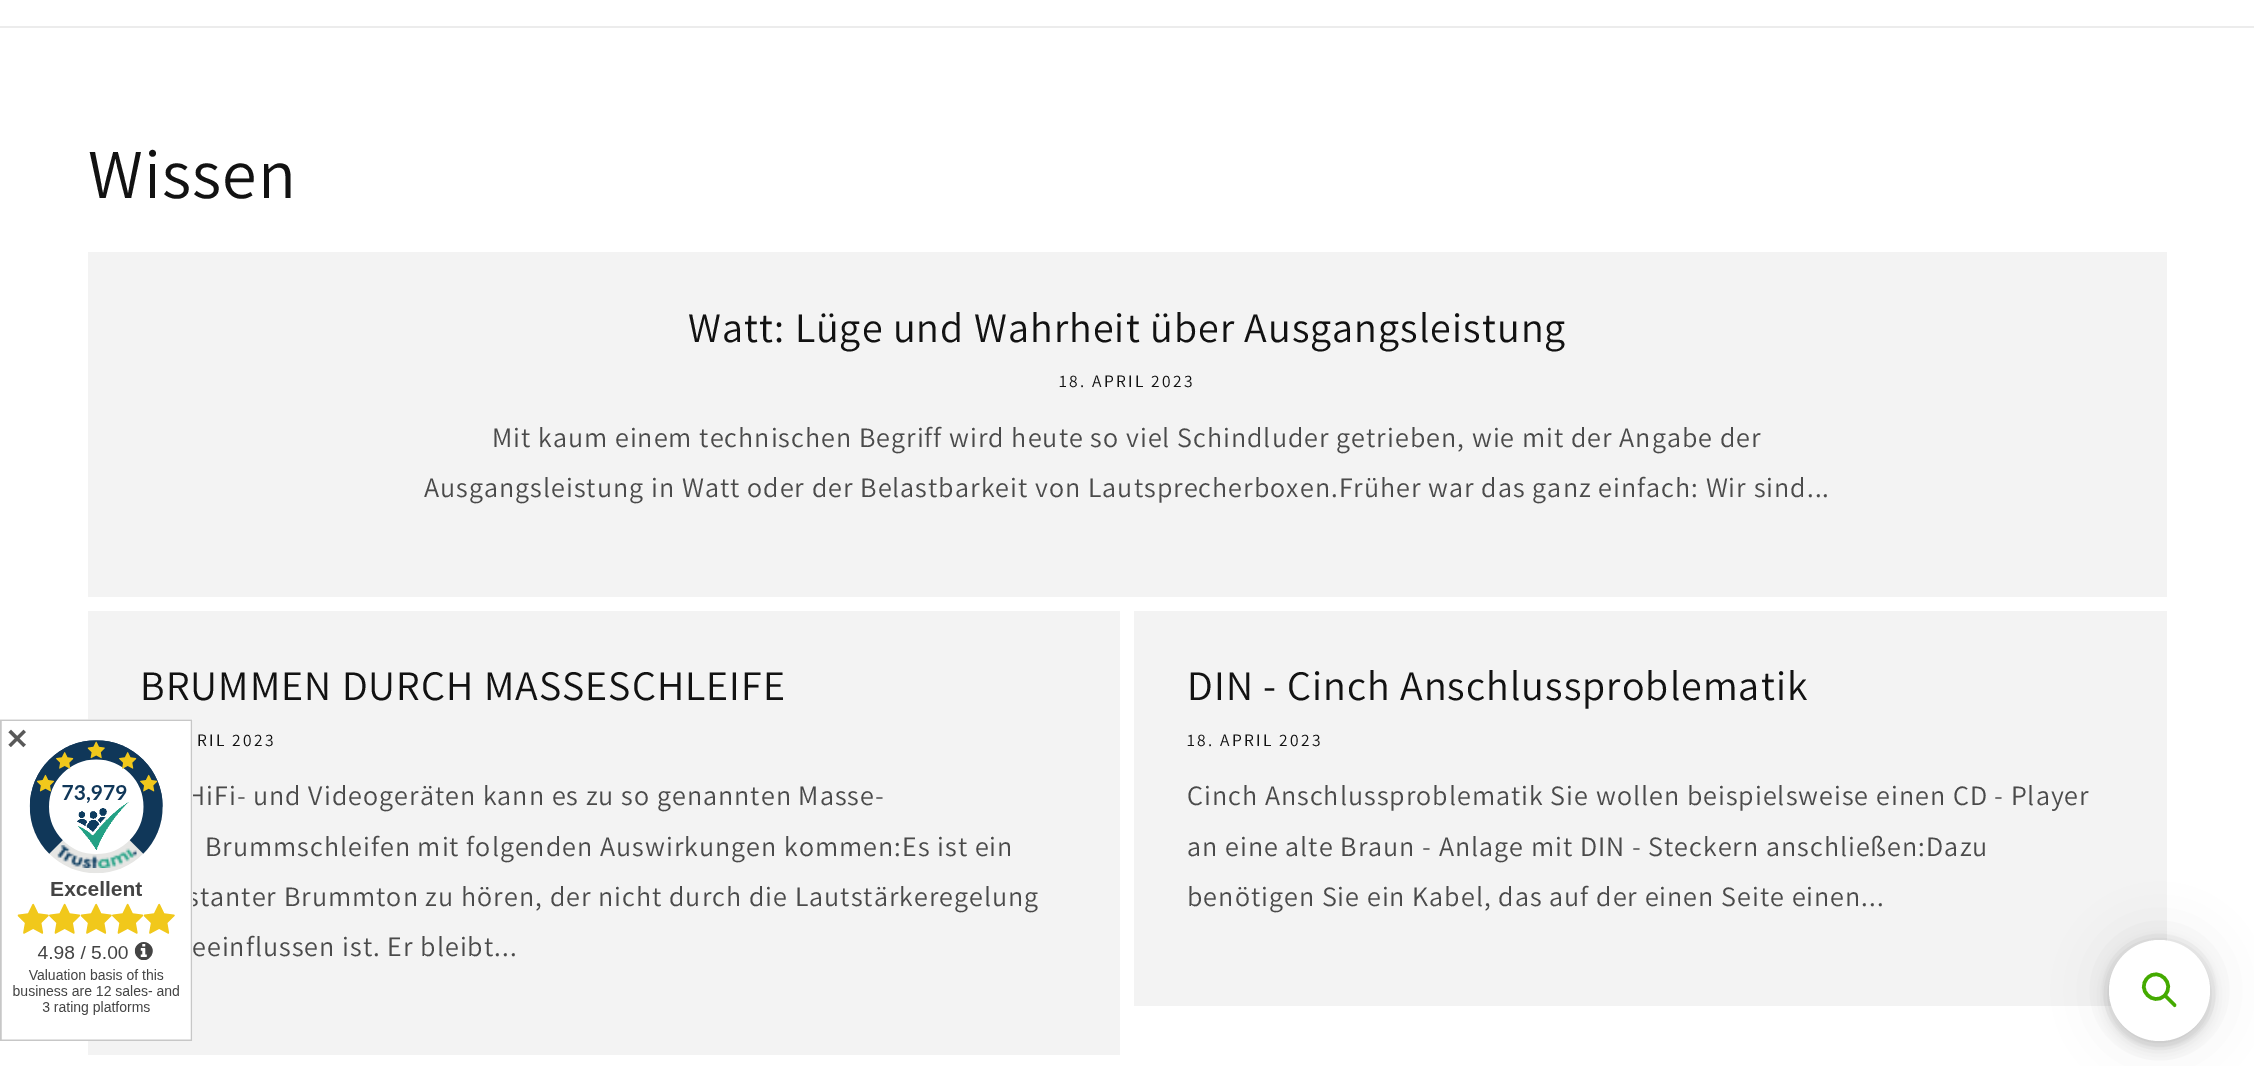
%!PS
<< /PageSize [2254 1066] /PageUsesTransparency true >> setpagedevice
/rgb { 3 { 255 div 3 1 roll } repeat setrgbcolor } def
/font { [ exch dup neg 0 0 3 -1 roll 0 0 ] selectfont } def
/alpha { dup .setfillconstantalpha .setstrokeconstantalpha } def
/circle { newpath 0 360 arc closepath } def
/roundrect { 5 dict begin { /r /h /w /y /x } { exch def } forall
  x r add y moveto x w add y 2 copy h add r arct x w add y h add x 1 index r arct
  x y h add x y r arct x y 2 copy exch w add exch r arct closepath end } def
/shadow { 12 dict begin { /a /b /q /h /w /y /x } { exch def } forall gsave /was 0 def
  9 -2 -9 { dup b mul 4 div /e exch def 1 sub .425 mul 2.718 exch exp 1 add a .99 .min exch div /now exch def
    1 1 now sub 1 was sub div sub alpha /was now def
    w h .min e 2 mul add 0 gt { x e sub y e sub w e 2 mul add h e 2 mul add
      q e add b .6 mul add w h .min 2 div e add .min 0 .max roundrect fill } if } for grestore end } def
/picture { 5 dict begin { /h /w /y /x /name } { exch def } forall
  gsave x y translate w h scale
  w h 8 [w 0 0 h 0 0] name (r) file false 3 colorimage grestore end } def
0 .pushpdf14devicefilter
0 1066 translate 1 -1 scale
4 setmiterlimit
255 255 255 rgb
0 0 2254 1066 rectfill
[
  [0 26 2254 2 236 236 236]
  [88 252 2079 345 243 243 243]
  [88 611 1032 444 243 243 243]
  [1134 611 1033 395 243 243 243]
] { aload pop rgb rectfill } forall
0 0 0 rgb
2109 947 101 101 50.5 7 0.05 shadow
2109 943 101 102 50.5 7 0.15 shadow
2109 940 101 101 50.5 26 0.1 shadow
255 255 255 rgb
2159.5 990.5 50.5 circle fill
68 170 0 rgb
3.5 setlinewidth
2147.5 978 moveto 2158.5 966.5 2176 984 2164.5 995.5 curveto 2153.5 1006.5 2136 989.5 2147.5 978 curveto closepath stroke
2163.5 996.5 moveto 2166 994 lineto 2176 1004 lineto 2177 1006 2175 1008 2173.5 1006.5 curveto closepath fill
/Assistant-Regular 70 font
18 18 18 rgb
88 198 moveto 1.05 0 (Wissen) ashow
/Assistant-Regular 42 font
688 342 moveto 1.05 0 (Watt: Lüge und Wahrheit über Ausgangsleistung) ashow
/Assistant-Regular 17.5 font
1059 387 moveto 2.25 0 (18. APRIL 2023) ashow
/Assistant-Regular 28 font
74 74 74 rgb
492 447 moveto 1.05 0 (Mit kaum einem technischen Begriff wird heute so viel Schindluder getrieben, wie mit der Angabe der) ashow
424 497 moveto 1.05 0 (Ausgangsleistung in Watt oder der Belastbarkeit von Lautsprecherboxen.Früher war das ganz einfach: Wir sind...) ashow
/Assistant-Regular 42 font
18 18 18 rgb
140 700 moveto 1.05 0 (BRUMMEN DURCH MASSESCHLEIFE) ashow
/Assistant-Regular 17.5 font
197 746 moveto 2.25 0 (RIL 2023) ashow
/Assistant-Regular 28 font
74 74 74 rgb
187 805 moveto 1.05 0 (HiFi- und Videogeräten kann es zu so genannten Masse-) ashow
205 856 moveto 1.05 0 (Brummschleifen mit folgenden Auswirkungen kommen:Es ist ein) ashow
187 906 moveto 1.05 0 (stanter Brummton zu hören, der nicht durch die Lautstärkeregelung) ashow
(img/1.rgb) 0 719 193 322 picture
/DejaVuSans-Bold 28 font
89 89 89 rgb
5 749 moveto 1.05 0 (✕) ashow
/Assistant-Regular 28 font
74 74 74 rgb
192 956 moveto 1.05 0 (eeinflussen ist. Er bleibt...) ashow
/Assistant-Regular 42 font
18 18 18 rgb
1187 700 moveto 1.05 0 (DIN - Cinch Anschlussproblematik) ashow
/Assistant-Regular 17.5 font
1187 746 moveto 2.25 0 (18. APRIL 2023) ashow
/Assistant-Regular 28 font
74 74 74 rgb
1187 805 moveto 1.05 0 (Cinch Anschlussproblematik Sie wollen beispielsweise einen CD - Player) ashow
1187 856 moveto 1.05 0 (an eine alte Braun - Anlage mit DIN - Steckern anschließen:Dazu) ashow
1187 906 moveto 1.05 0 (benötigen Sie ein Kabel, das auf der einen Seite einen...) ashow
.poppdf14devicefilter showpage
